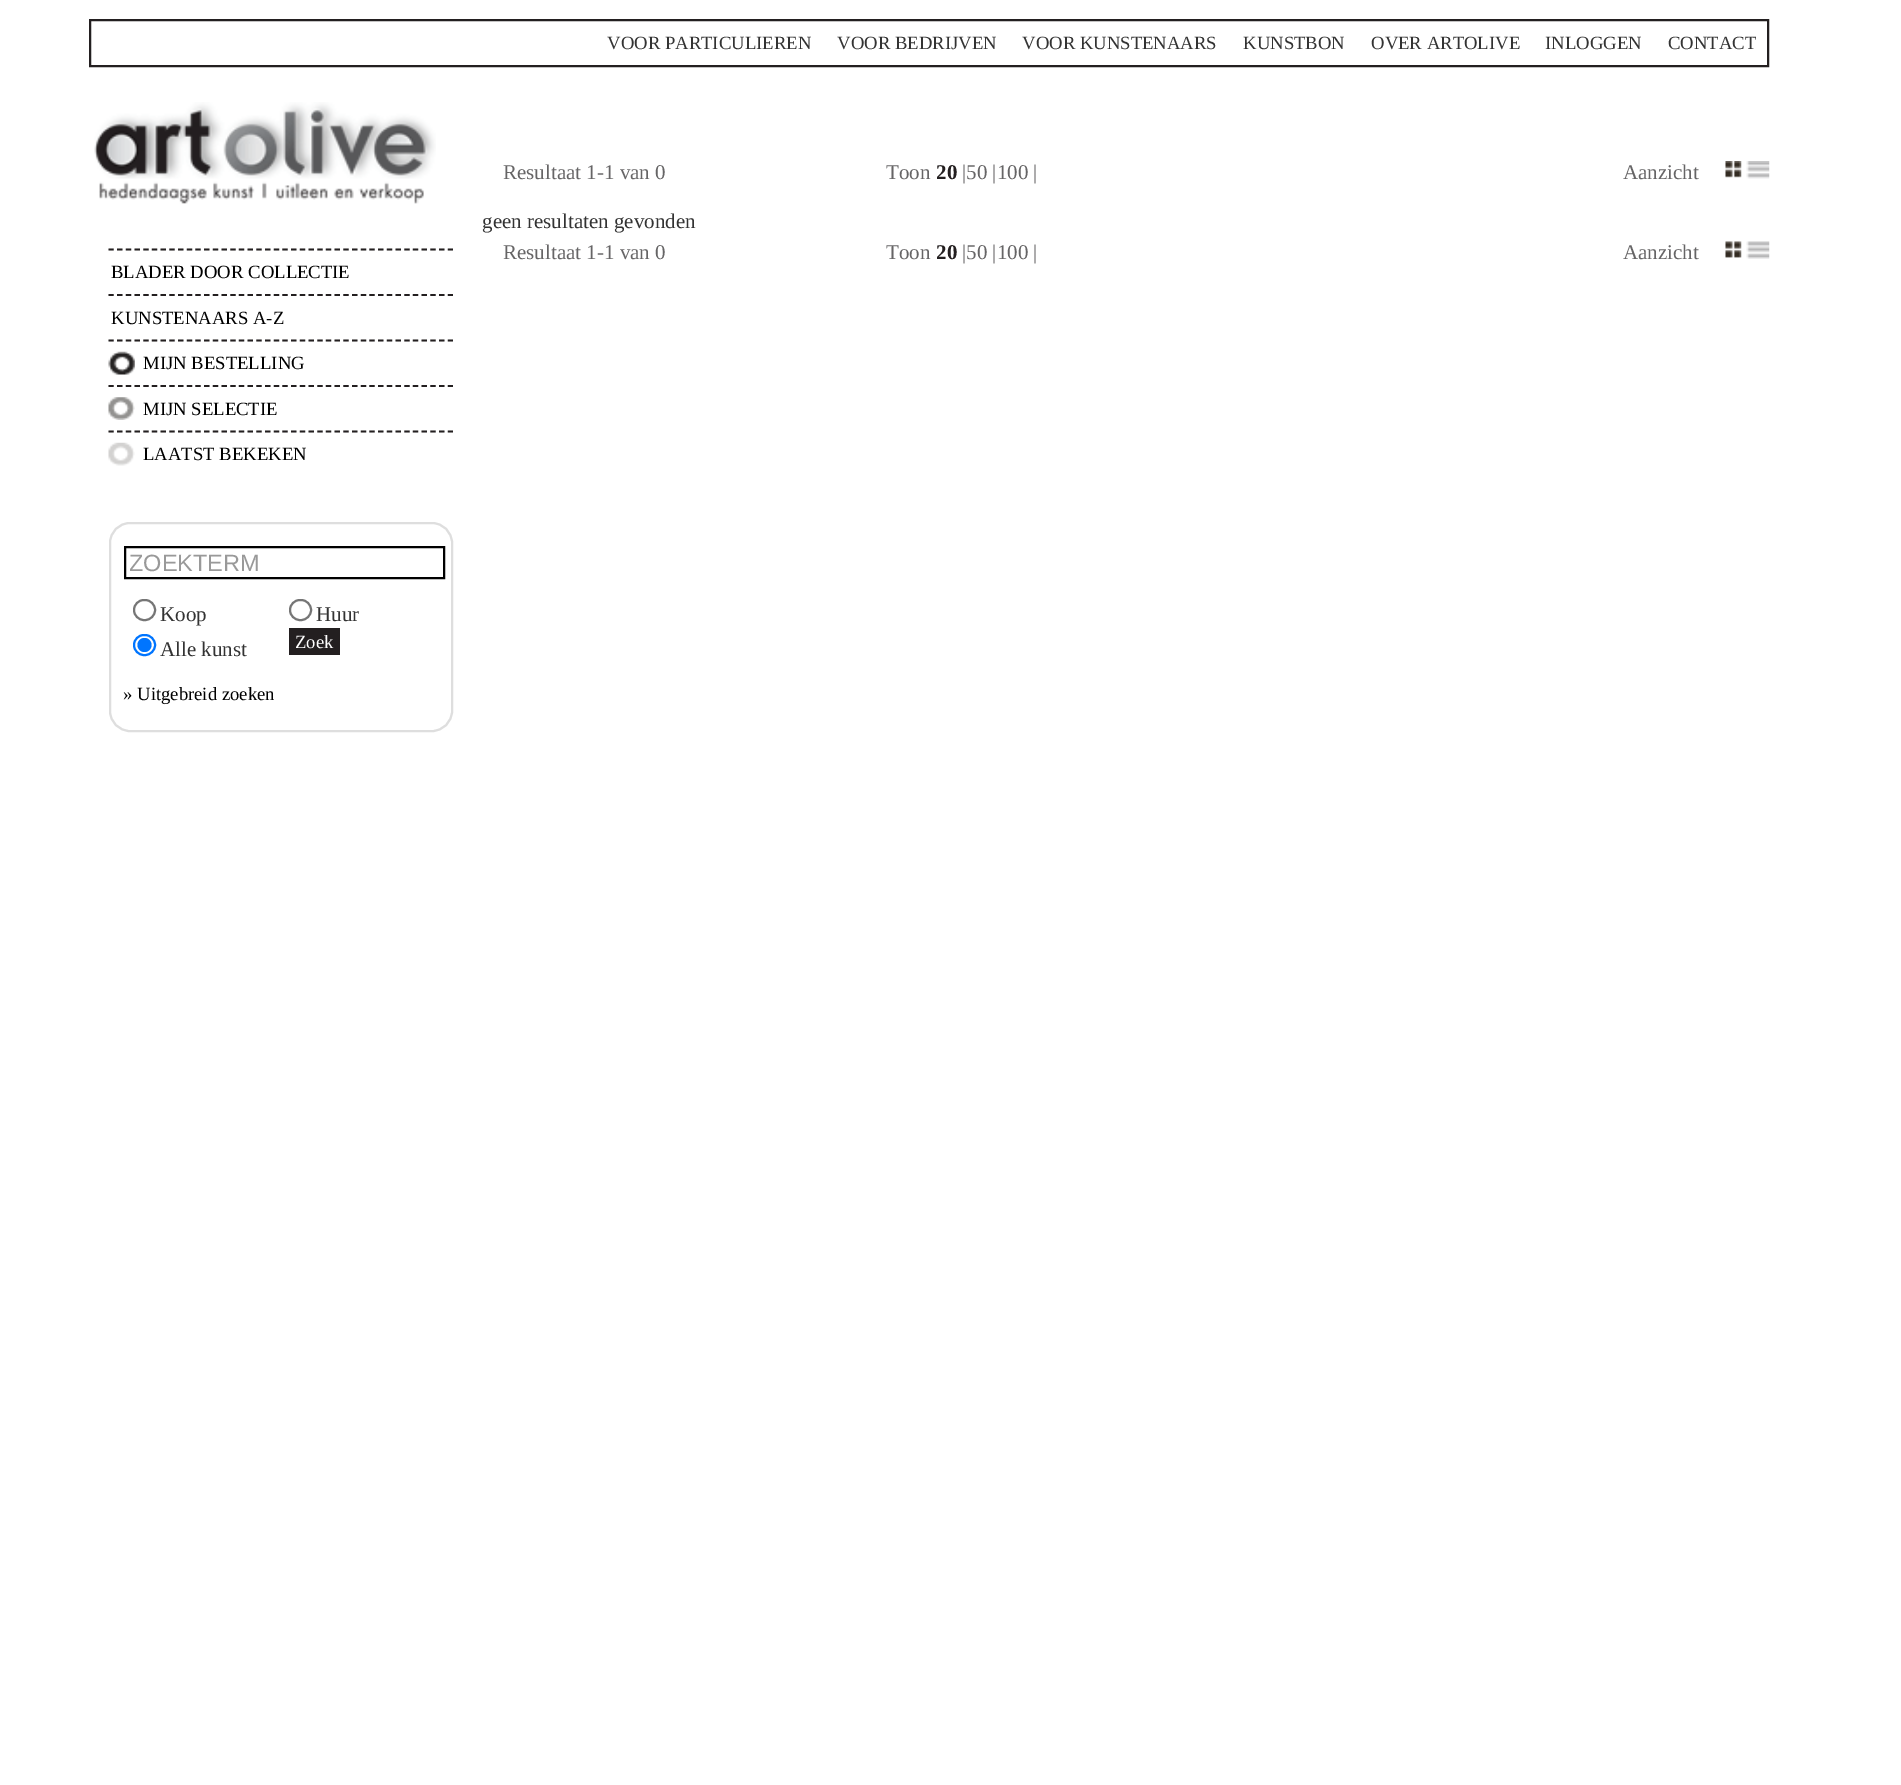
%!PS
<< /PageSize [1901 1785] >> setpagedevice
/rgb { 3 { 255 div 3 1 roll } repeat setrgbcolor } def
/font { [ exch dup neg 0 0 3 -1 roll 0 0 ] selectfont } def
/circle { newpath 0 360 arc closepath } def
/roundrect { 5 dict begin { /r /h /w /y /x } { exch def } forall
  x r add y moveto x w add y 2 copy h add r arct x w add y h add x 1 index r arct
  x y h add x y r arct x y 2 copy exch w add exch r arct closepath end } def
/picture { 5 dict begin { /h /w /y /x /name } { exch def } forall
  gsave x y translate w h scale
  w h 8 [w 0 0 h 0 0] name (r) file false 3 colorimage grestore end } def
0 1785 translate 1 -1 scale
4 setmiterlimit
255 255 255 rgb
0 0 1901 1785 rectfill
35 31 32 rgb
2 setlinewidth
90 20 1678 46 rectstroke
(img/1.rgb) 94 102 342 102 picture
(img/2.rgb) 1725 161 17 17 picture
(img/3.rgb) 1746 161 24 18 picture
(img/4.rgb) 1725 241 17 17 picture
(img/5.rgb) 1746 241 24 18 picture
1.8 setlinewidth
[5.25 3.45] 0 setdash
108.5 249.5 moveto 453 249.5 lineto stroke
108.5 295 moveto 453 295 lineto stroke
(img/6.rgb) 108 351 27 24 picture
108.5 340.5 moveto 453 340.5 lineto stroke
(img/7.rgb) 108 397 27 23 picture
108.5 386 moveto 453 386 lineto stroke
(img/8.rgb) 108 442 27 24 picture
108.5 431.5 moveto 453 431.5 lineto stroke
222 222 222 rgb
2 setlinewidth
[] 0 setdash
110 523 342 208 20 roundrect stroke
0 0 0 rgb
125 547 319 31 rectstroke
118 118 118 rgb
134 600 21 20 10 roundrect stroke
290 600 21 20 10 roundrect stroke
0 117 255 rgb
134 635 21 20 10 roundrect stroke
144.5 645 7 circle fill
35 31 32 rgb
289 628 51 27 rectfill
/LiberationSerif-Regular 18.7 font
51 51 51 rgb
[
  [(VOOR PARTICULIEREN) 607 49]
  [(VOOR BEDRIJVEN) 837 49]
  [(VOOR KUNSTENAARS) 1022 49]
  [(KUNSTBON) 1243 49]
  [(OVER ARTOLIVE) 1371 49]
  [(INLOGGEN) 1545 49]
  [(CONTACT) 1668 49]
] { aload pop moveto show } forall
/LiberationSerif-Regular 21 font
102 101 102 rgb
503 179 moveto (Resultaat 1-1 van 0) show
886 179 moveto (Toon) show
/LiberationSerif-Bold 21 font
35 31 32 rgb
936 179 moveto (20) show
/LiberationSerif-Regular 21 font
102 101 102 rgb
962 179 moveto (|50 |100 |) show
1623 179 moveto (Aanzicht) show
51 51 51 rgb
482 228 moveto (geen resultaten gevonden) show
102 101 102 rgb
503 259 moveto (Resultaat 1-1 van 0) show
886 259 moveto (Toon) show
/LiberationSerif-Bold 21 font
35 31 32 rgb
936 259 moveto (20) show
/LiberationSerif-Regular 21 font
102 101 102 rgb
962 259 moveto (|50 |100 |) show
1623 259 moveto (Aanzicht) show
/LiberationSerif-Regular 18.7 font
0 0 0 rgb
[
  [(BLADER DOOR COLLECTIE) 111 278]
  [(KUNSTENAARS A-Z) 111 324]
  [(MIJN BESTELLING) 143 369]
  [(MIJN SELECTIE) 143 415]
  [(LAATST BEKEKEN) 143 460]
] { aload pop moveto show } forall
gsave
130 550 309 26 rectclip
/LiberationSans-Regular 23.5 font
153 153 153 rgb
129 571 moveto (ZOEKTERM) show
grestore
/LiberationSerif-Regular 21 font
51 51 51 rgb
[
  [(Koop) 160 621]
  [(Huur) 316 621]
  [(Alle kunst) 160 656]
] { aload pop moveto show } forall
/LiberationSerif-Regular 18.7 font
255 255 255 rgb
295 648 moveto (Zoek) show
0 0 0 rgb
123 700 moveto (» Uitgebreid zoeken) show
showpage
